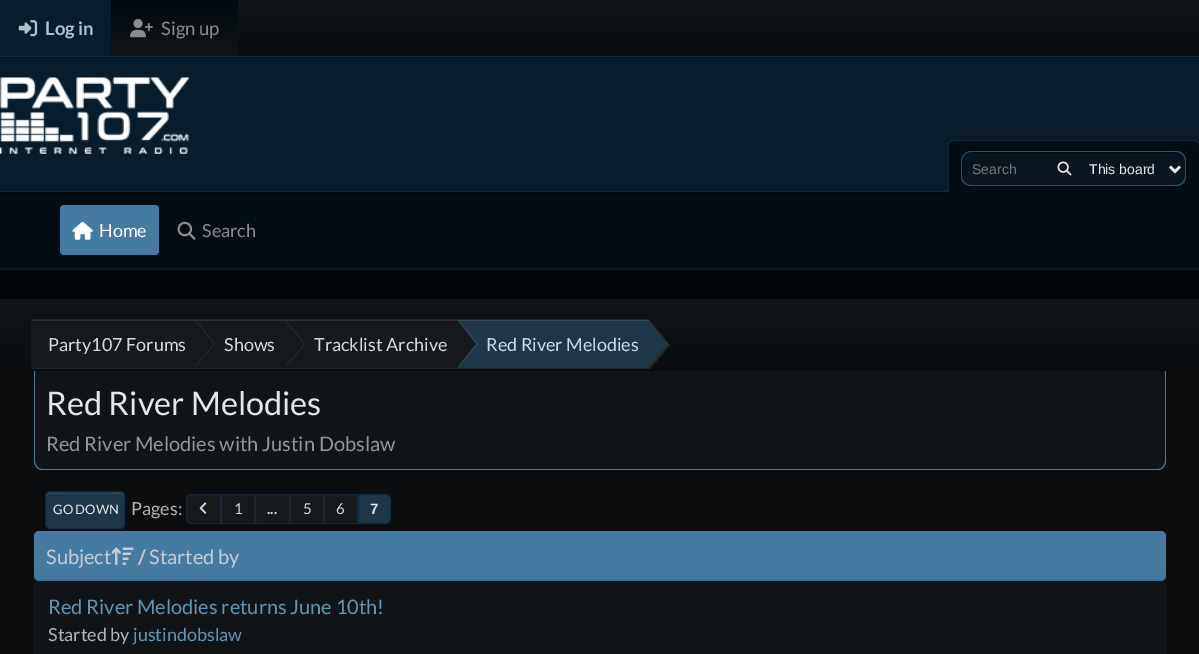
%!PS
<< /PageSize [1199 654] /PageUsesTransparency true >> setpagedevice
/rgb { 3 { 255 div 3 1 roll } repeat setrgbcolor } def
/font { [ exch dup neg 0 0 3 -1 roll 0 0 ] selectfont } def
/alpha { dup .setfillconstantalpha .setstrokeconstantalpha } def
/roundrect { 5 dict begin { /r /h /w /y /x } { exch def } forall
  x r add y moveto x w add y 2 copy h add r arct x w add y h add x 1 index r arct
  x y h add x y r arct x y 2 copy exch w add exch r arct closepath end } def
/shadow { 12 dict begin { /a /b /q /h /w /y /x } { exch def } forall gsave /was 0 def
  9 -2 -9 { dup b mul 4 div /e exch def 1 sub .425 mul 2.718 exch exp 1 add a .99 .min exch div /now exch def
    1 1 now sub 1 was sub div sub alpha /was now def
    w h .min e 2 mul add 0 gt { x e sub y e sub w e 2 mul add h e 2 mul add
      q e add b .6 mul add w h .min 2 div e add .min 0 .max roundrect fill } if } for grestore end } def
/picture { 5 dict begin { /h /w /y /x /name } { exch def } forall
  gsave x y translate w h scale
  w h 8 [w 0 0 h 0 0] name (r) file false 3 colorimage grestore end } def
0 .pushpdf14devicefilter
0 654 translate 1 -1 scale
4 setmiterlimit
1 6 9 rgb
0 0 1199 654 rectfill
gsave 238 0 moveto 1199 0 lineto 1199 56 lineto 238 56 lineto closepath clip newpath
<< /ShadingType 2 /ColorSpace /DeviceRGB /Coords [600 0 600 56] /Extend [true true] /Function << /FunctionType 2 /Domain [0 1] /C0 [0.059 0.082 0.102] /C1 [0.043 0.051 0.059] /N 1 >> >> shfill grestore
gsave 0 57 moveto 1199 57 lineto 1199 58 lineto 0 58 lineto closepath clip newpath
<< /ShadingType 2 /ColorSpace /DeviceRGB /Coords [600 56 600 113] /Extend [true true] /Function << /FunctionType 2 /Domain [0 1] /C0 [0.059 0.082 0.102] /C1 [0.043 0.051 0.059] /N 1 >> >> shfill grestore
21 41 55 rgb
0 56 1199 1 rectfill
8 28 43 rgb
0 0 111 56 rectfill
(img/1.rgb) 18 20 20 17 picture
gsave 111 0 moveto 238 0 lineto 238 56 lineto 111 56 lineto closepath clip newpath
<< /ShadingType 2 /ColorSpace /DeviceRGB /Coords [174 0 174 56] /Extend [true true] /Function << /FunctionType 2 /Domain [0 1] /C0 [0 0.035 0.059] /C1 [0.067 0.082 0.094] /N 1 >> >> shfill grestore
(img/2.rgb) 130 19 23 19 picture
0 58 1199 133 rectfill
21 41 55 rgb
0 191 948 1 rectfill
(img/3.rgb) 0 77 189 77 picture
170 170 170 rgb
0 195 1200 75 0 0.5 0.1 shadow
1 12 19 rgb
954 141 moveto 1194 141 lineto 1197 141 1199 143 1199 146 curveto 1199 193 lineto 949 193 lineto 949 146 lineto 949 143 951 141 954 141 curveto closepath fill
21 41 55 rgb
954 140 moveto 1194 140 lineto 1197 140 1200 143 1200 146 curveto 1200 192 lineto 948 192 lineto 948 146 lineto 948 143 950 140 954 140 curveto closepath 954 141 moveto 1194 141 lineto 1197 141 1199 143 1199 146 curveto 1199 192 lineto 949 192 lineto 949 146 lineto 949 143 951 141 954 141 curveto closepath eofill
10 22 31 rgb
972 153 moveto 1045 153 lineto 1045 185 lineto 972 185 lineto 967 185 963 181 963 176 curveto 963 162 lineto 963 157 967 153 972 153 curveto closepath fill
27 85 126 rgb
971 151 moveto 1045 151 lineto 1045 186 lineto 971 186 lineto 966 186 961 182 961 176 curveto 961 161 lineto 961 156 966 151 971 151 curveto closepath 971 152 moveto 1045 152 lineto 1045 185 lineto 971 185 lineto 966 185 962 181 962 176 curveto 962 161 lineto 962 156 966 152 971 152 curveto closepath eofill
[
  [1045 153 39 32 10 22 31]
  [1045 151 39 1 27 85 126]
  [1045 185 39 1 27 85 126]
] { aload pop rgb rectfill } forall
(img/4.rgb) 1057 161 15 15 picture
10 22 31 rgb
1084 153 moveto 1176 153 lineto 1181 153 1185 157 1185 162 curveto 1185 176 lineto 1185 181 1181 185 1176 185 curveto 1084 185 lineto closepath fill
27 85 126 rgb
1084 151 moveto 1176 151 lineto 1182 151 1186 156 1186 161 curveto 1186 176 lineto 1186 182 1182 186 1176 186 curveto 1084 186 lineto closepath 1084 152 moveto 1176 152 lineto 1181 152 1185 156 1185 161 curveto 1185 176 lineto 1185 181 1181 185 1176 185 curveto 1084 185 lineto closepath eofill
230 230 230 rgb
2.5 setlinewidth
1170 166.5 moveto 1175 171.5 lineto 1180 166.5 lineto stroke
1 12 19 rgb
0 193 1199 75 rectfill
69 122 161 rgb
60 205 99 50 4 roundrect fill
(img/5.rgb) 72 221 21 19 picture
(img/6.rgb) 177 221 19 19 picture
gsave 0 299 moveto 1199 299 lineto 1199 374 lineto 0 374 lineto closepath clip newpath
<< /ShadingType 2 /ColorSpace /DeviceRGB /Coords [600 299 600 374] /Extend [true true] /Function << /FunctionType 2 /Domain [0 1] /C0 [0.059 0.082 0.102] /C1 [0.043 0.051 0.059] /N 1 >> >> shfill grestore
[
  [31 320 164 48 22 26 29]
  [31 320 427 1 45 49 52]
  [31 319 618 1 25 40 52]
  [31 368 618 1 25 40 52]
  [195 321 263 47 22 26 29]
] { aload pop rgb rectfill } forall
45 49 52 rgb
196 366 moveto 196 321 lineto 215 344 lineto closepath fill
22 26 29 rgb
195 366 moveto 195 321 lineto 214 344 lineto closepath fill
45 49 52 rgb
286 366 moveto 286 321 lineto 305 344 lineto closepath fill
22 26 29 rgb
285 366 moveto 285 321 lineto 304 344 lineto closepath fill
31 54 71 rgb
458 321 191 47 rectfill
53 74 89 rgb
459 366 moveto 459 321 lineto 478 344 lineto closepath fill
22 26 29 rgb
458 366 moveto 458 321 lineto 476 344 lineto closepath fill
53 74 89 rgb
458 320 191 1 rectfill
0.1 alpha
255 255 255 rgb
649 370 moveto 649 320 lineto 670 345 lineto closepath fill
1 alpha
31 54 71 rgb
649 366 moveto 649 321 lineto 668 344 lineto closepath fill
11 13 15 rgb
0 374 1199 280 rectfill
17 21 24 rgb
35 371 moveto 1165 371 lineto 1165 461 lineto 1165 465.5 1161.5 469 1157 469 curveto 43 469 lineto 38.5 469 35 465.5 35 461 curveto closepath fill
69 122 161 rgb
34 371 moveto 1166 371 lineto 1166 461 lineto 1166 466 1162 470 1158 470 curveto 42 470 lineto 38 470 34 466 34 461 curveto closepath 35 371 moveto 1165 371 lineto 1165 461 lineto 1165 465 1162 469 1158 469 curveto 42 469 lineto 38 469 35 465 35 461 curveto closepath eofill
31 54 71 rgb
45 491 80 38 5 roundrect fill
53 74 89 rgb
50 494 moveto 120 494 lineto 122 494 124 495 124 498 curveto 124 490 113 493 108 493 curveto 62 493 lineto 57 493 46 490 46 498 curveto 46 495 48 494 50 494 curveto closepath fill
10 43 67 rgb
1 setlinewidth
45.5 491.5 79 37 4.5 roundrect stroke
22 26 29 rgb
191 494.5 moveto 220.5 494.5 lineto 220.5 523.5 lineto 191 523.5 lineto 188.5 523.5 186.5 521.5 186.5 519 curveto 186.5 499 lineto 186.5 496.5 188.5 494.5 191 494.5 curveto closepath gsave fill grestore
25 40 52 rgb
stroke
(img/7.rgb) 199 502 8 12 picture
22 26 29 rgb
221.5 494.5 moveto 254.5 494.5 lineto 254.5 523.5 lineto 221.5 523.5 lineto closepath gsave fill grestore
25 40 52 rgb
stroke
22 26 29 rgb
255.5 494.5 moveto 289.5 494.5 lineto 289.5 523.5 lineto 255.5 523.5 lineto closepath gsave fill grestore
25 40 52 rgb
stroke
22 26 29 rgb
290.5 494.5 moveto 323.5 494.5 lineto 323.5 523.5 lineto 290.5 523.5 lineto closepath gsave fill grestore
25 40 52 rgb
stroke
22 26 29 rgb
324.5 494.5 moveto 357.5 494.5 lineto 357.5 523.5 lineto 324.5 523.5 lineto closepath gsave fill grestore
25 40 52 rgb
stroke
31 54 71 rgb
358.5 494.5 moveto 386 494.5 lineto 388.5 494.5 390.5 496.5 390.5 499 curveto 390.5 519 lineto 390.5 521.5 388.5 523.5 386 523.5 curveto 358.5 523.5 lineto closepath gsave fill grestore
10 43 67 rgb
stroke
69 122 161 rgb
34 531 1132 50 5 roundrect fill
0.1 alpha
0 0 0 rgb
34 574 moveto 34 576 lineto 34 579 36 581 39 581 curveto 1161 581 lineto 1164 581 1166 579 1166 576 curveto 1166 574 lineto 1166 577 1164 579 1161 579 curveto 39 579 lineto 36 579 34 577 34 574 curveto closepath fill
1 alpha
(img/8.rgb) 111 547 23 18 picture
[
  [35 581 1130 73 17 21 24]
  [1165 581 1 73 19 27 32]
  [34 581 1 73 19 27 32]
] { aload pop rgb rectfill } forall
/Lato-Bold 18.5 font
175 194 207 rgb
45 35 moveto (Log in) show
/Lato-Regular 18.5 font
140 140 140 rgb
161 35 moveto (Sign up) show
/LiberationSans-Regular 14 font
117 117 117 rgb
972 174 moveto (Search) show
230 230 230 rgb
1089 174 moveto (This board) show
/Lato-Regular 18 font
255 255 255 rgb
99 237 moveto (Home) show
140 140 140 rgb
202 237 moveto (Search) show
217 217 217 rgb
[
  [(Party107 Forums) 48 351]
  [(Shows) 224 351]
  [(Tracklist Archive) 314 351]
] { aload pop moveto show } forall
203 219 230 rgb
486 351 moveto (Red River Melodies) show
/Lato-Regular 32.5 font
230 230 230 rgb
46 415 moveto (Red River Melodies) show
/Lato-Regular 20 font
149 149 149 rgb
46 451 moveto (Red River Melodies with Justin Dobslaw) show
/Lato-Regular 13 font
230 230 230 rgb
53 514 moveto (GO DOWN) show
/Lato-Regular 18 font
179 179 179 rgb
131 515 moveto (Pages:) show
/Lato-Regular 15 font
217 217 217 rgb
234 514 moveto (1) show
/Lato-Bold 15 font
267 514 moveto (...) show
/Lato-Regular 15 font
303 514 moveto (5) show
336 514 moveto (6) show
/LiberationSans-Bold 15 font
230 230 230 rgb
370 514 moveto (7) show
/Lato-Regular 20 font
196 205 212 rgb
46 564 moveto (Subject) show
/Lato-Bold 20 font
138 564 moveto (/) show
/Lato-Regular 20 font
149 564 moveto (Started by) show
100 147 180 rgb
48 614 moveto (Red River Melodies returns June 10th!) show
/Lato-Regular 18 font
179 179 179 rgb
48 641 moveto (Started by) show
100 147 180 rgb
133 641 moveto (justindobslaw) show
.poppdf14devicefilter showpage
